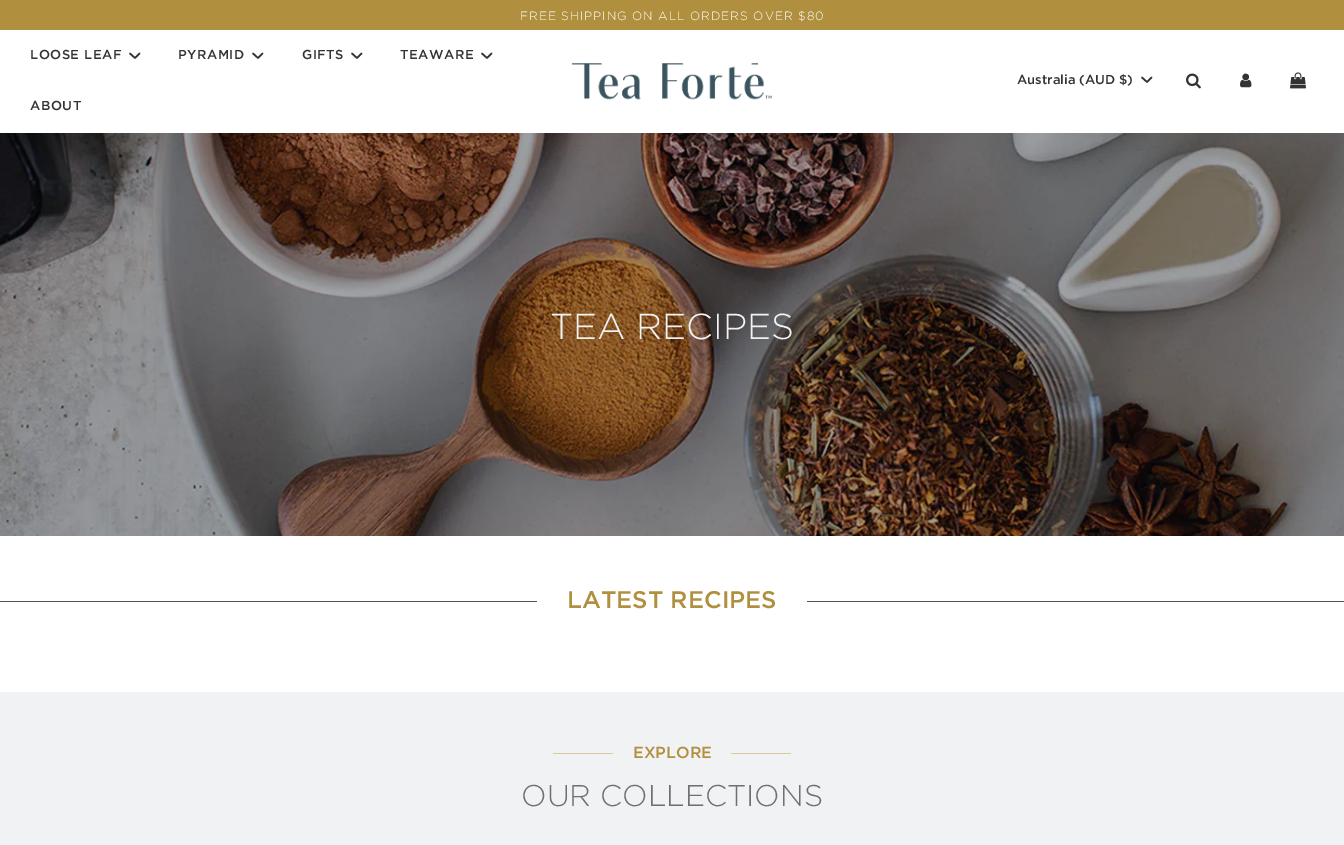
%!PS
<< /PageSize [1344 845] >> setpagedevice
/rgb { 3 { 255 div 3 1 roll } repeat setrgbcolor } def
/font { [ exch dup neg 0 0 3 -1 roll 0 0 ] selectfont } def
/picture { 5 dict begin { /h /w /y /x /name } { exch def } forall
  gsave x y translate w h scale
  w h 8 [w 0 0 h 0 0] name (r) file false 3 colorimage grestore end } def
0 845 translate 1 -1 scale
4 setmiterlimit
255 255 255 rgb
0 0 1344 845 rectfill
176 144 63 rgb
0 0 1344 30 rectfill
51 51 51 rgb
1.6 setlinewidth
1 setlinecap
1 setlinejoin
130 53.5 moveto 135 58 lineto 139.5 53.5 lineto stroke
253 53.5 moveto 258 58 lineto 262.5 53.5 lineto stroke
352 53.5 moveto 357 58 lineto 361.5 53.5 lineto stroke
482 53.5 moveto 487 58 lineto 491.5 53.5 lineto stroke
(img/1.rgb) 572 63 200 37 picture
1142 77.5 moveto 1147 82 lineto 1151.5 77.5 lineto stroke
(img/2.rgb) 1186 73 15 16 picture
(img/3.rgb) 1240 73 12 15 picture
(img/4.rgb) 1290 72 16 17 picture
(img/5.rgb) 0 133 1344 403 picture
[
  [0 601 1344 1 69 84 95]
  [537 601 270 1 255 255 255]
  [0 692 1344 153 241 242 243]
  [553 753 60 1 216 200 159]
  [731 753 60 1 216 200 159]
] { aload pop rgb rectfill } forall
/Gotham-Light 12 font
255 255 255 rgb
520 20 moveto 1 0 (FREE SHIPPING ON ALL ORDERS OVER $80) ashow
/Gotham-Medium 13 font
51 51 51 rgb
30 59 moveto 0.5 0 (LOOSE LEAF) ashow
178 59 moveto 0.5 0 (PYRAMID) ashow
302 59 moveto 0.5 0 (GIFTS) ashow
400 59 moveto 0.5 0 (TEAWARE) ashow
30 110 moveto 0.5 0 (ABOUT) ashow
1017 84 moveto (Australia \(AUD $\)) show
/Gotham-Light 36 font
241 242 243 rgb
550 339 moveto (TEA RECIPES) show
/Gotham-Medium 24 font
176 144 63 rgb
567 608 moveto (LATEST RECIPES) show
/Gotham-Medium 16 font
633 758 moveto (EXPLORE) show
/Gotham-Light 30 font
112 112 112 rgb
521 806 moveto (OUR COLLECTIONS) show
showpage
